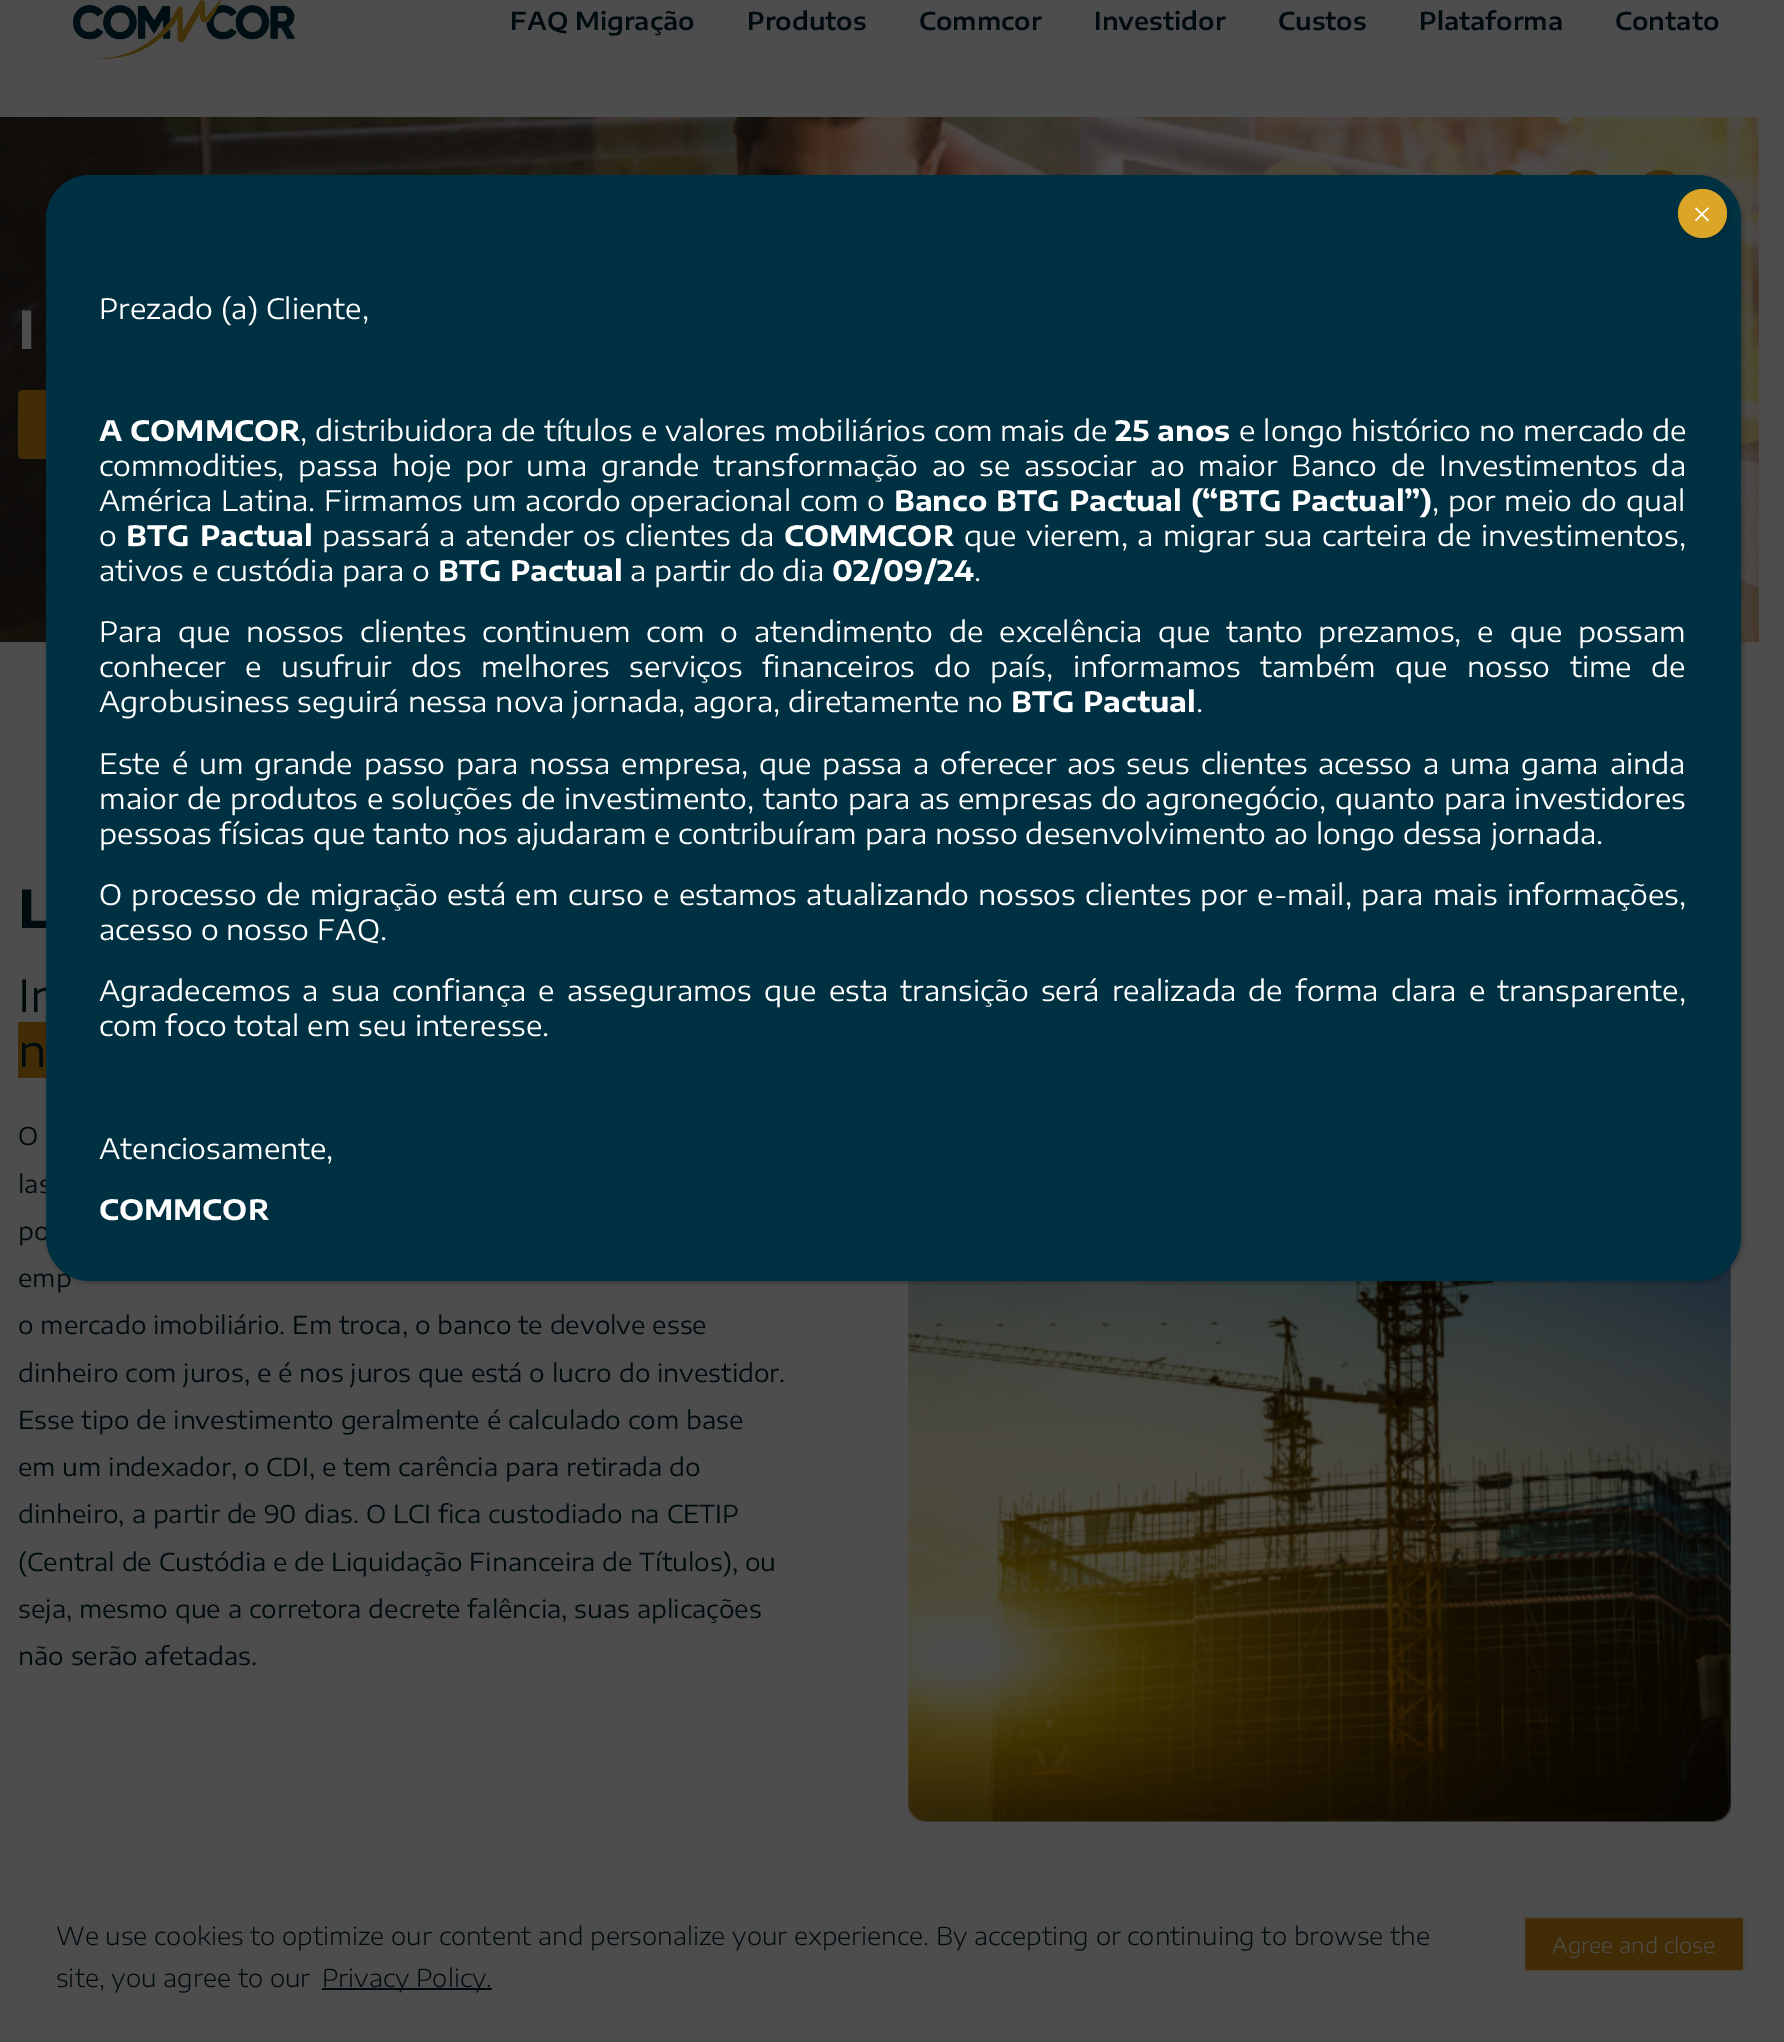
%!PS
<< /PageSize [1784 2042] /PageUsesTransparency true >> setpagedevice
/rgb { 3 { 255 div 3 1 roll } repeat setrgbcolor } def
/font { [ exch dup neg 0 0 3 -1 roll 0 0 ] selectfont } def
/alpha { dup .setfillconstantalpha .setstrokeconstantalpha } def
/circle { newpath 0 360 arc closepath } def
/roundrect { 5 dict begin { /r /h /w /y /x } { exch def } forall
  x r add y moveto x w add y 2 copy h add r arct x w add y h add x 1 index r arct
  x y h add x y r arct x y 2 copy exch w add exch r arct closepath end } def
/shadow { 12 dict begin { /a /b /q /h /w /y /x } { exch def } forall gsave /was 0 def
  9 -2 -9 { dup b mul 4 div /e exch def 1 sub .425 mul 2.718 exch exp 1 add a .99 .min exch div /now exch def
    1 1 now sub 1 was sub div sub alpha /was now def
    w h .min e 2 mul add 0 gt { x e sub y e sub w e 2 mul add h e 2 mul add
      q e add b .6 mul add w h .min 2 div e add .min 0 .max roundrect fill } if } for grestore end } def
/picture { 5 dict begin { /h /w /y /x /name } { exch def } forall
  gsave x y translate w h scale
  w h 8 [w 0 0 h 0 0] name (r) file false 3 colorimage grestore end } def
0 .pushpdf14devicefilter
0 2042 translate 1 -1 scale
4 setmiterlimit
77 77 77 rgb
0 0 1784 2042 rectfill
(img/1.rgb) 73 0 222 59 picture
(img/2.rgb) 0 117 1759 525 picture
65 44 10 rgb
1507.5 195.5 25.5 circle fill
1558 170 50 51 25 roundrect fill
1635 170 50 51 25 roundrect fill
65 44 6 rgb
18 390 287 69 5 roundrect fill
18 1022 28 56 rectfill
(img/3.rgb) 908 1265 823 557 picture
2 2 2 rgb
47 177 1696 1106 44 2.5 0.23 shadow
0 11 15 rgb
322 1988 170 2 rectfill
65 44 6 rgb
1524 1917 moveto 1744 1917 lineto 1744 1971 lineto 1524 1971 lineto closepath gsave fill grestore
75 73 68 rgb
2 setlinewidth
stroke
/EncodeSansExpanded-SemiBold 24.5 font
0 11 15 rgb
[
  [(FAQ Migração) 510 30]
  [(Produtos) 747 30]
  [(Commcor) 919 30]
  [(Investidor) 1094 30]
  [(Custos) 1278 30]
  [(Plataforma) 1419 30]
  [(Contato) 1615 30]
] { aload pop moveto show } forall
/EncodeSansExpanded-Bold 52 font
77 77 77 rgb
18 349 moveto (I) show
0 11 15 rgb
18 928 moveto (L) show
/EncodeSansExpanded-Regular 44 font
18 1012 moveto (In) show
18 1067 moveto (n) show
/EncodeSansExpanded-Regular 24.5 font
[
  [(O) 18 1145]
  [(las) 18 1193]
  [(po) 18 1240]
  [(emp) 18 1287]
] { aload pop moveto show } forall
0 49 67 rgb
46 175 1695 1106 44 roundrect fill
2 2 2 rgb
1680 191 49 49 24.5 2.5 0.23 shadow
219 166 40 rgb
1702.5 213.5 24.5 circle fill
/LiberationSerif-Regular 35 font
255 255 255 rgb
1692 226 moveto (×) show
/EncodeSansExpanded-Bold 28 font
99 1220 moveto (COMMCOR) show
/EncodeSansExpanded-Regular 28 font
99 1159 moveto (Atenciosamente,) show
99 1036 moveto (com foco total em seu interesse.) show
99 1001 moveto 4.4 0 32 (Agradecemos a sua confiança e asseguramos que esta transição será realizada de forma clara e transparente,) widthshow
99 940 moveto (acesso o nosso FAQ.) show
99 905 moveto 1.5 0 32 (O processo de migração está em curso e estamos atualizando nossos clientes por e-mail, para mais informações,) widthshow
99 844 moveto (pessoas físicas que tanto nos ajudaram e contribuíram para nosso desenvolvimento ao longo dessa jornada.) show
99 809 moveto 0.75 0 32 (maior de produtos e soluções de investimento, tanto para as empresas do agronegócio, quanto para investidores) widthshow
99 774 moveto 3 0 32 (Este é um grande passo para nossa empresa, que passa a oferecer aos seus clientes acesso a uma gama ainda) widthshow
1196 712 moveto (.) show
/EncodeSansExpanded-Bold 28 font
1011 712 moveto (BTG Pactual) show
/EncodeSansExpanded-Regular 28 font
99 712 moveto (Agrobusiness seguirá nessa nova jornada, agora, diretamente no) show
99 677 moveto 11.6 0 32 (conhecer e usufruir dos melhores serviços financeiros do país, informamos também que nosso time de) widthshow
99 642 moveto 8 0 32 (Para que nossos clientes continuem com o atendimento de excelência que tanto prezamos, e que possam) widthshow
974 581 moveto (.) show
/EncodeSansExpanded-Bold 28 font
832 581 moveto (02/09/24) show
/EncodeSansExpanded-Regular 28 font
630 581 moveto (a partir do dia) show
/EncodeSansExpanded-Bold 28 font
438 581 moveto (BTG Pactual) show
/EncodeSansExpanded-Regular 28 font
99 581 moveto (ativos e custódia para o) show
964 546 moveto 1.5 0 32 (que vierem, a migrar sua carteira de investimentos,) widthshow
/EncodeSansExpanded-Bold 28 font
784 546 moveto (COMMCOR) show
/EncodeSansExpanded-Regular 28 font
322 546 moveto 1.5 0 32 (passará a atender os clientes da) widthshow
/EncodeSansExpanded-Bold 28 font
126 546 moveto 2 0 32 (BTG Pactual) widthshow
/EncodeSansExpanded-Regular 28 font
99 546 moveto (o) show
1432 511 moveto 1 0 32 (, por meio do qual) widthshow
/EncodeSansExpanded-Bold 28 font
894 511 moveto 1 0 32 (Banco BTG Pactual \(“BTG Pactual”\)) widthshow
/EncodeSansExpanded-Regular 28 font
99 511 moveto 1 0 32 (América Latina. Firmamos um acordo operacional com o) widthshow
99 476 moveto 5.9 0 32 (commodities, passa hoje por uma grande transformação ao se associar ao maior Banco de Investimentos da) widthshow
1239 441 moveto 0.25 0 32 (e longo histórico no mercado de) widthshow
/EncodeSansExpanded-Bold 28 font
1115 441 moveto (25 anos) show
/EncodeSansExpanded-Regular 28 font
300 441 moveto 0.25 0 32 (, distribuidora de títulos e valores mobiliários com mais de) widthshow
/EncodeSansExpanded-Bold 28 font
99 441 moveto (A COMMCOR) show
/EncodeSansExpanded-Regular 28 font
99 319 moveto (Prezado \(a\) Cliente,) show
/EncodeSansExpanded-Regular 24.5 font
0 11 15 rgb
[
  [(o mercado imobiliário. Em troca, o banco te devolve esse) 18 1334]
  [(dinheiro com juros, e é nos juros que está o lucro do investidor.) 18 1382]
  [(Esse tipo de investimento geralmente é calculado com base) 18 1429]
  [(em um indexador, o CDI, e tem carência para retirada do) 18 1476]
  [(dinheiro, a partir de 90 dias. O LCI fica custodiado na CETIP) 18 1523]
  [(\(Central de Custódia e de Liquidação Financeira de Títulos\), ou) 18 1571]
  [(seja, mesmo que a corretora decrete falência, suas aplicações) 18 1618]
  [(não serão afetadas.) 18 1665]
] { aload pop moveto show } forall
/EncodeSansExpanded-Light 24.5 font
[
  [(We use cookies to optimize our content and personalize your experience. By accepting or continuing to browse the) 56 1945]
  [(site, you agree to our) 56 1987]
  [(Privacy Policy.) 322 1987]
] { aload pop moveto show } forall
/EncodeSansExpanded-Light 21 font
77 77 77 rgb
1552 1953 moveto (Agree and close) show
.poppdf14devicefilter showpage
